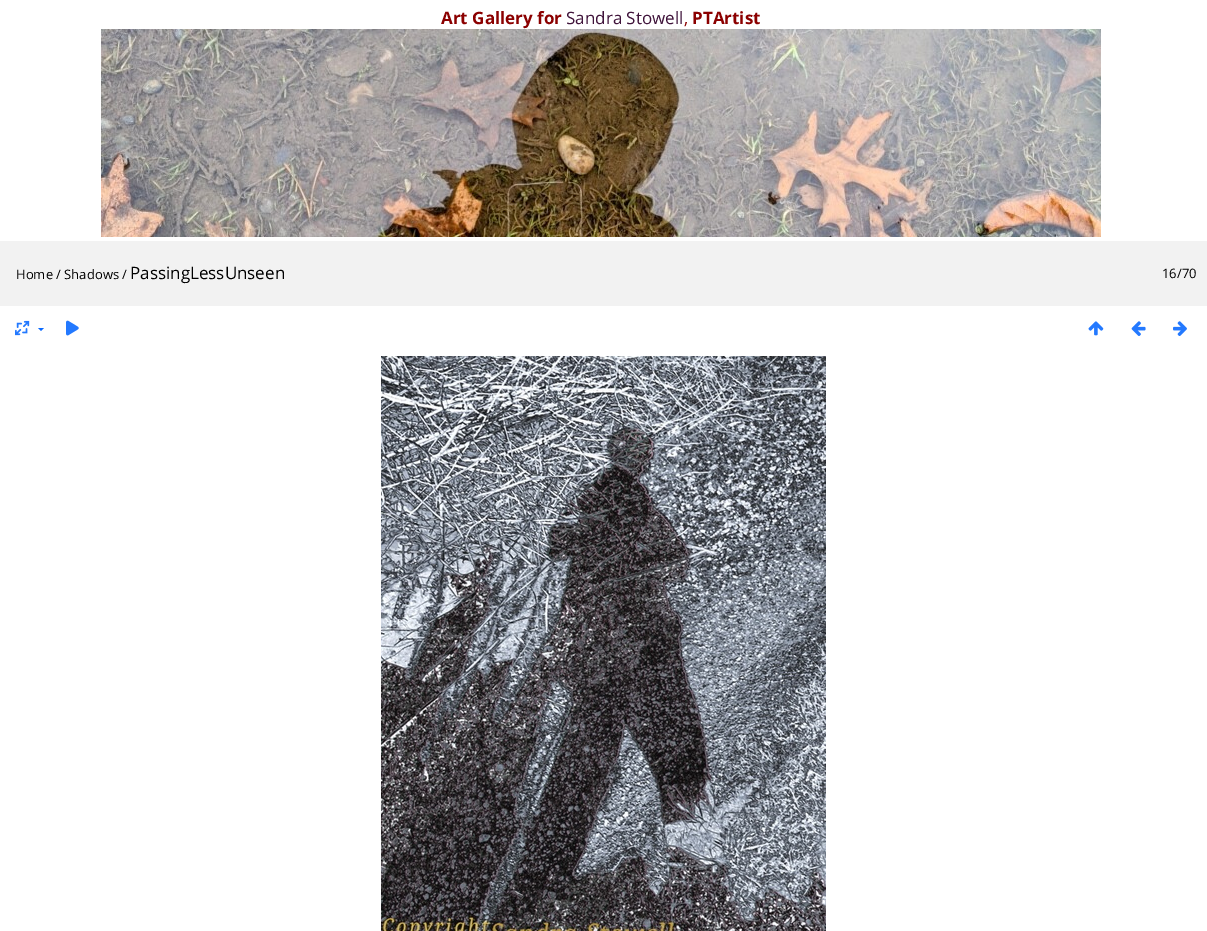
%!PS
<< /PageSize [1207 931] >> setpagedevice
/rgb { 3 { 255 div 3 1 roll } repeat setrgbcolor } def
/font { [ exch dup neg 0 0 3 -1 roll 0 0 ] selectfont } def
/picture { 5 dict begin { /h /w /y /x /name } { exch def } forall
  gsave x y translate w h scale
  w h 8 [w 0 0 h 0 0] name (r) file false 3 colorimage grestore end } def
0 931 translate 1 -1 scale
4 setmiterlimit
255 255 255 rgb
0 0 1207 931 rectfill
(img/1.rgb) 101 29 1000 208 picture
242 242 242 rgb
0 241 1207 65 rectfill
(img/2.rgb) 15 320 15 16 picture
11 106 255 rgb
38 328 moveto 44 328 lineto 41 331 lineto closepath fill
(img/3.rgb) 66 320 13 16 picture
(img/4.rgb) 1088 321 16 15 picture
(img/5.rgb) 1131 321 15 15 picture
(img/6.rgb) 1173 321 14 15 picture
(img/7.rgb) 381 356 445 575 picture
/OpenSans-Bold 17 font
139 0 0 rgb
441 24 moveto (Art Gallery for) show
/OpenSans-Regular 17 font
64 20 59 rgb
566 24 moveto (Sandra Stowell) show
139 0 0 rgb
684 24 moveto (,) show
/OpenSans-Bold 17 font
692 24 moveto (PTArtist) show
/OpenSans-Regular 13 font
0 0 0 rgb
16 279 moveto (Home / Shadows /) show
/OpenSans-Regular 17 font
130 279 moveto (PassingLessUnseen) show
/OpenSans-Regular 13 font
1162 278 moveto (16/70) show
showpage
